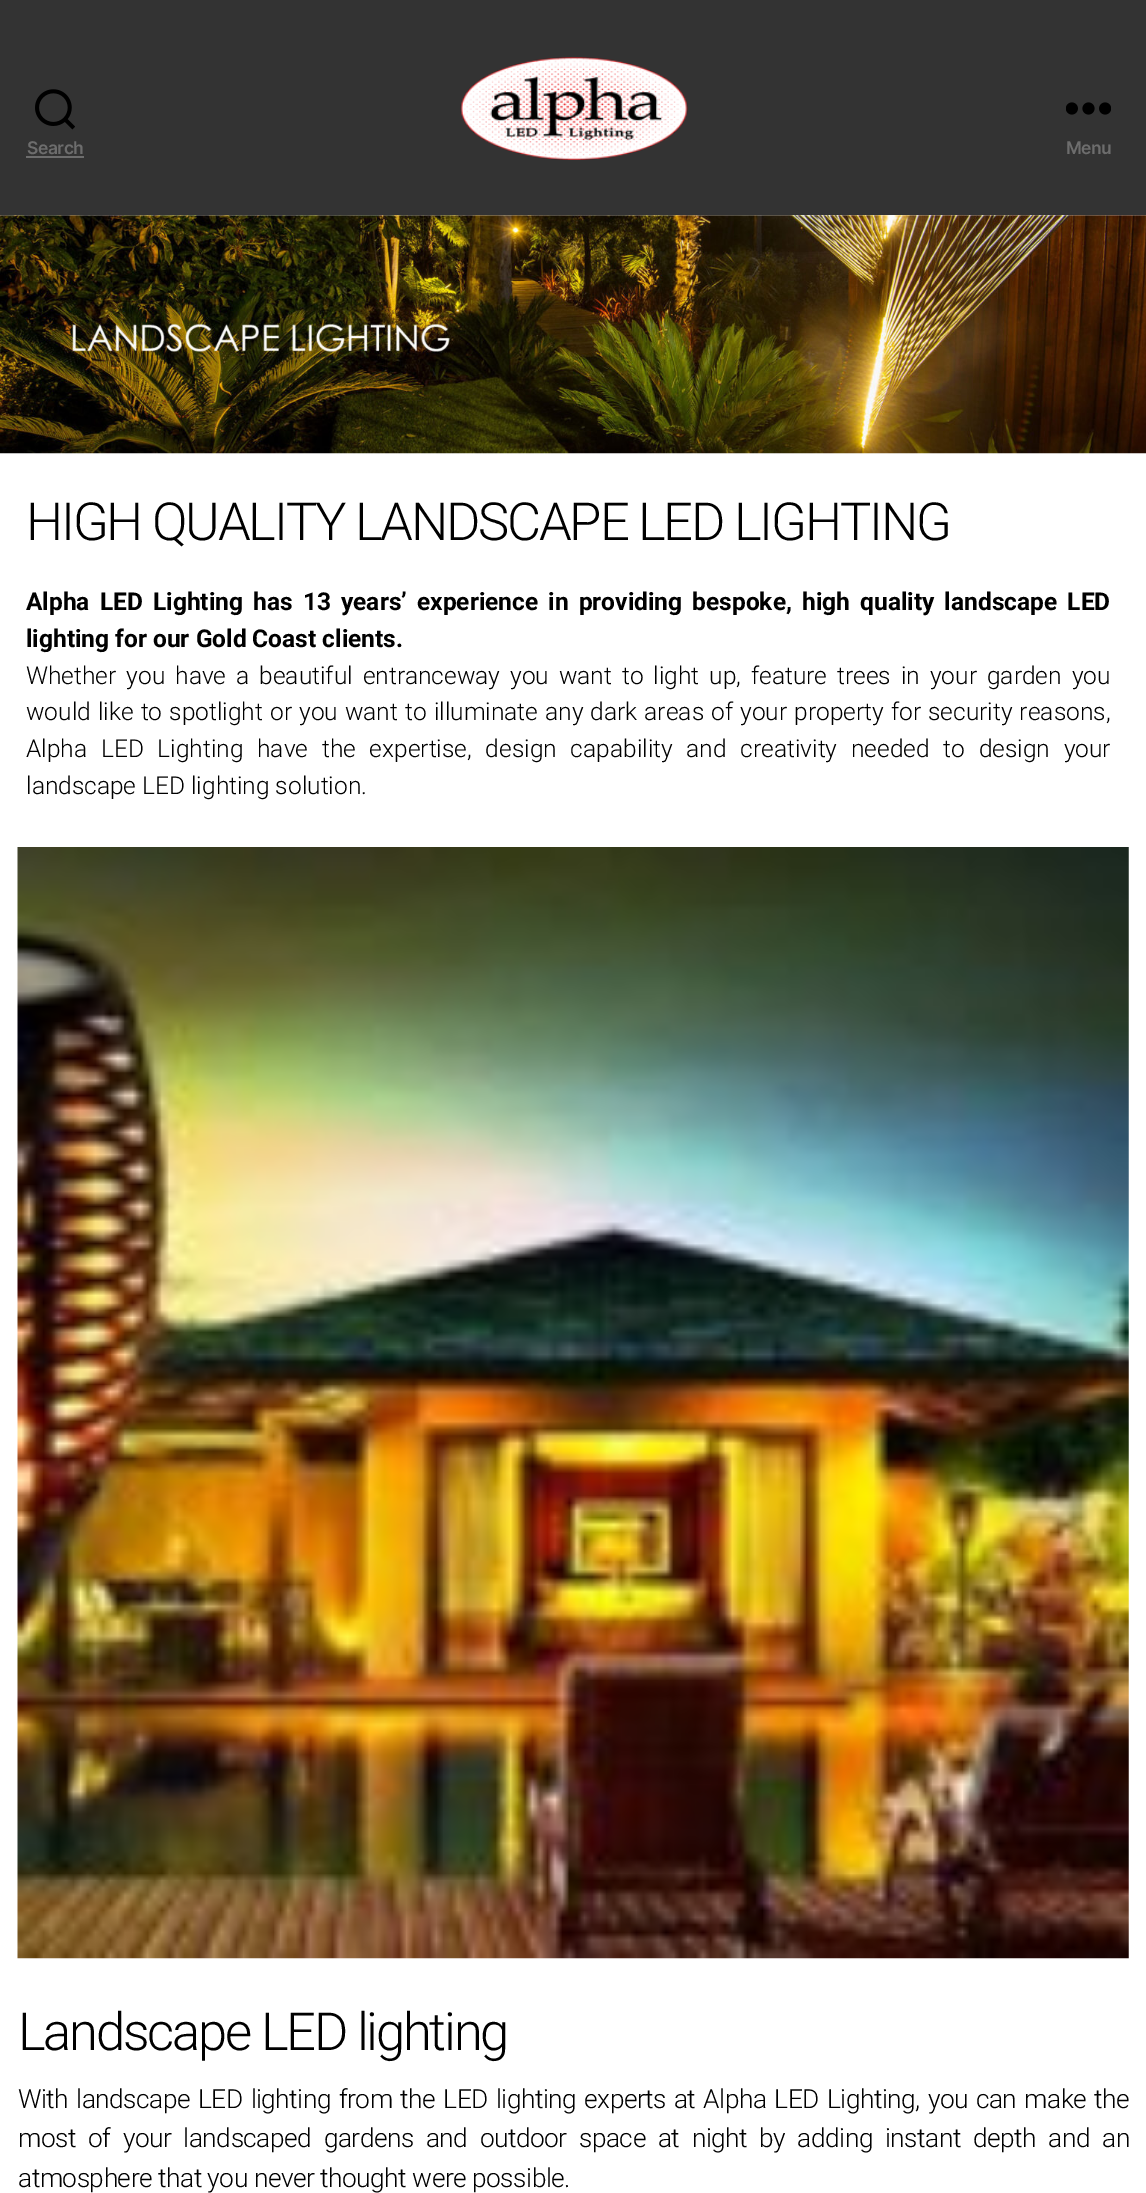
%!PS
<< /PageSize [1146 2193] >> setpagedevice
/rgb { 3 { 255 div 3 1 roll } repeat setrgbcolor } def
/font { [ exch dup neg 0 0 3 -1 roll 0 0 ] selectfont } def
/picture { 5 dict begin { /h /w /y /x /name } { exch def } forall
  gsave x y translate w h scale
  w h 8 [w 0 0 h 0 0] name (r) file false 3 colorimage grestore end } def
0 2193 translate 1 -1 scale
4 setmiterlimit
255 255 255 rgb
0 0 1146 2193 rectfill
51 51 51 rgb
0 0 1146 215 rectfill
(img/1.rgb) 35 89 40 41 picture
109 109 109 rgb
26 156 58 2 rectfill
(img/2.rgb) 460 57 228 103 picture
(img/3.rgb) 1066 102 45 13 picture
(img/4.rgb) 0 215 1146 239 picture
(img/5.rgb) 17 847 1112 1112 picture
/Inter-SemiBold 17.5 font
27 154 moveto -0.47 0 (Search) ashow
1066 154 moveto -0.47 0 (Menu) ashow
/Roboto-Light 52.5 font
0 0 0 rgb
26 540 moveto -2.2 0 (HIGH QUALITY LANDSCAPE LED LIGHTING) ashow
/Roboto-Bold 24.5 font
26 610 moveto 4.1 0 32 (Alpha LED Lighting has 13 years’ experience in providing bespoke, high quality landscape LED) widthshow
26 647 moveto (lighting for our Gold Coast clients.) show
/Roboto-Light 24.5 font
26 684 moveto 4 0 32 (Whether you have a beautiful entranceway you want to light up, feature trees in your garden you) widthshow
26 720 moveto 1.1 0 32 (would like to spotlight or you want to illuminate any dark areas of your property for security reasons,) widthshow
26 757 moveto 7.75 0 32 (Alpha LED Lighting have the expertise, design capability and creativity needed to design your) widthshow
26 794 moveto (landscape LED lighting solution.) show
/Roboto-Light 52.5 font
18 2050 moveto -2.2 0 (Landscape LED lighting) ashow
/Roboto-Light 26.25 font
18 2108 moveto 2 0 32 -0.47 0 (With landscape LED lighting from the LED lighting experts at Alpha LED Lighting, you can make the) awidthshow
18 2147 moveto 6.25 0 32 -0.47 0 (most of your landscaped gardens and outdoor space at night by adding instant depth and an) awidthshow
18 2187 moveto -0.47 0 (atmosphere that you never thought were possible.) ashow
showpage
